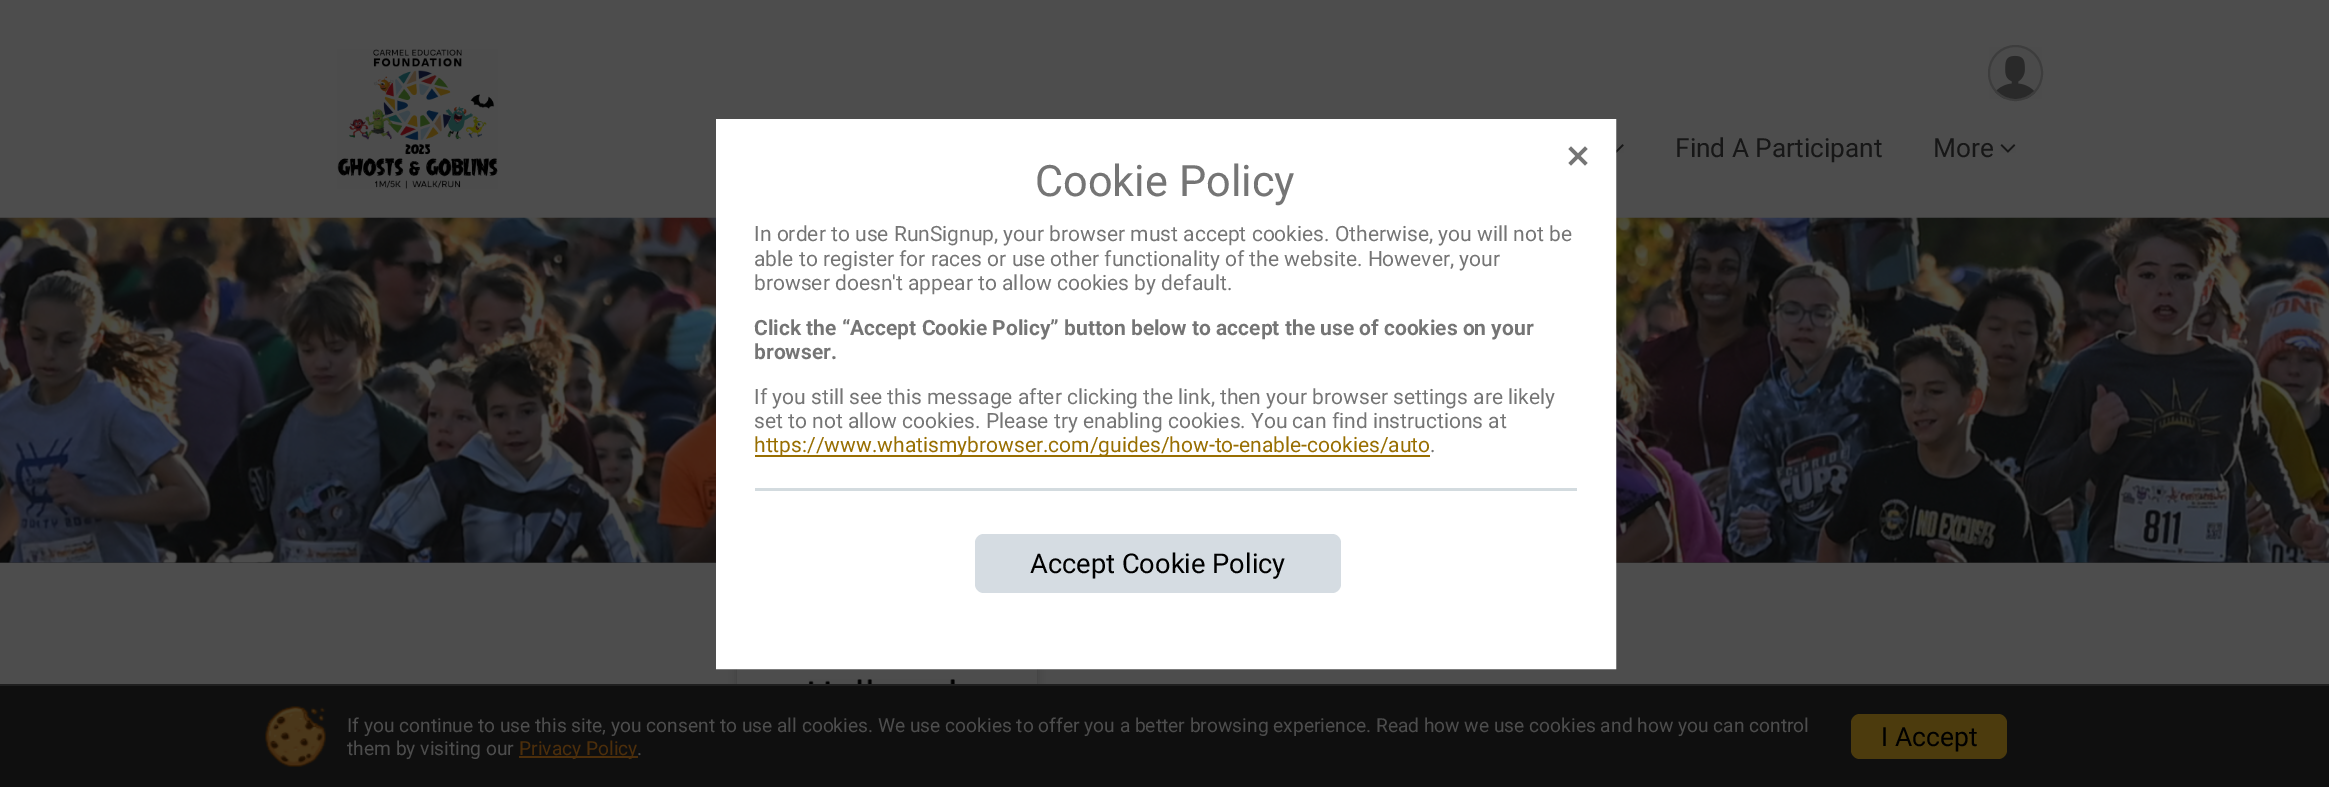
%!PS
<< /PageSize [2329 787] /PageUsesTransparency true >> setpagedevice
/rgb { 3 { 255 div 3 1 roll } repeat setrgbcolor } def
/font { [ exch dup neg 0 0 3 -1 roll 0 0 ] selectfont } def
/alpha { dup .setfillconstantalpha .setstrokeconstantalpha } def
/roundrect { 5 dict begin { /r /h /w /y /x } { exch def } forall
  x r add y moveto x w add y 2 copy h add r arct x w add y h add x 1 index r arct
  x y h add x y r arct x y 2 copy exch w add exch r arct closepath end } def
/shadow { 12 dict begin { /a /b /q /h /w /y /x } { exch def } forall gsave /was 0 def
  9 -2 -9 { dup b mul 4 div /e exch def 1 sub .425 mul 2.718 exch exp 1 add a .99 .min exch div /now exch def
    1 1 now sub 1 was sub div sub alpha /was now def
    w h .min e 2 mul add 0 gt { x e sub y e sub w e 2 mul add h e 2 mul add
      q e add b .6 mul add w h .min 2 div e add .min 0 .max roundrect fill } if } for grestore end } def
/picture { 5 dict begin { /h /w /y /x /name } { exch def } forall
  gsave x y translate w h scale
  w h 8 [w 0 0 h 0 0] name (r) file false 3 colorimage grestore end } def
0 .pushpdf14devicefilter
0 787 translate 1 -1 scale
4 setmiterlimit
77 77 77 rgb
0 0 2329 787 rectfill
(img/1.rgb) 337 49 161 140 picture
(img/2.rgb) 1989 47 53 52 picture
61 61 61 rgb
2 setlinewidth
1989 46 53 54 26.5 roundrect stroke
(img/3.rgb) 1616 144 8 9 picture
(img/4.rgb) 2000 144 16 9 picture
46 46 46 rgb
0 562 2329 1 rectfill
(img/5.rgb) 0 217 2329 346 picture
0 0 0 rgb
737 618 300 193 12 4 0.2 shadow
77 77 77 rgb
737 669 300 15 rectfill
(img/6.rgb) 808 679 147 5 picture
255 255 255 rgb
717 120 898 548 rectstroke
718 121 896 546 rectfill
(img/7.rgb) 1568 146 20 20 picture
152 110 1 rgb
755 455 675 2 rectfill
211 219 223 rgb
755 488 822 3 rectfill
213 220 226 rgb
975 534 366 59 9 roundrect fill
15 15 15 rgb
0 686 2329 101 rectfill
31 31 31 rgb
0 684 2329 2 rectfill
(img/8.rgb) 265 706 61 61 picture
76 46 11 rgb
519 756 119 2 rectfill
76 59 13 rgb
1851 714 156 45 9 roundrect fill
/Roboto-Regular 26.25 font
23 23 23 rgb
1675 157 moveto (Find A Participant) show
1933 157 moveto (More) show
/Roboto-Regular 43.25 font
117 117 117 rgb
1035 196 moveto (Cookie Policy) show
/Roboto-Regular 21 font
[
  [(In order to use RunSignup, your browser must accept cookies. Otherwise, you will not be) 754 241]
  [(able to register for races or use other functionality of the website. However, your) 754 266]
  [(browser doesn't appear to allow cookies by default.) 754 290]
] { aload pop moveto show } forall
/Roboto-Bold 21 font
754 335 moveto (Click the “Accept Cookie Policy” button below to accept the use of cookies on your) show
754 359 moveto (browser.) show
/Roboto-Regular 21 font
754 404 moveto (If you still see this message after clicking the link, then your browser settings are likely) show
754 428 moveto (set to not allow cookies. Please try enabling cookies. You can find instructions at) show
152 110 1 rgb
754 452 moveto (https://www.whatismybrowser.com/guides/how-to-enable-cookies/auto) show
117 117 117 rgb
1430 452 moveto (.) show
/Roboto-Regular 27.25 font
0 0 0 rgb
1030 573 moveto (Accept Cookie Policy) show
/Roboto-Regular 19.2 font
77 77 77 rgb
347 732 moveto (If you continue to use this site, you consent to use all cookies. We use cookies to offer you a better browsing experience. Read how we use cookies and how you can control) show
347 755 moveto (them by visiting our) show
76 46 11 rgb
519 755 moveto (Privacy Policy) show
77 77 77 rgb
637 755 moveto (.) show
/Roboto-Regular 26.5 font
0 0 0 rgb
1881 746 moveto (I Accept) show
.poppdf14devicefilter showpage
